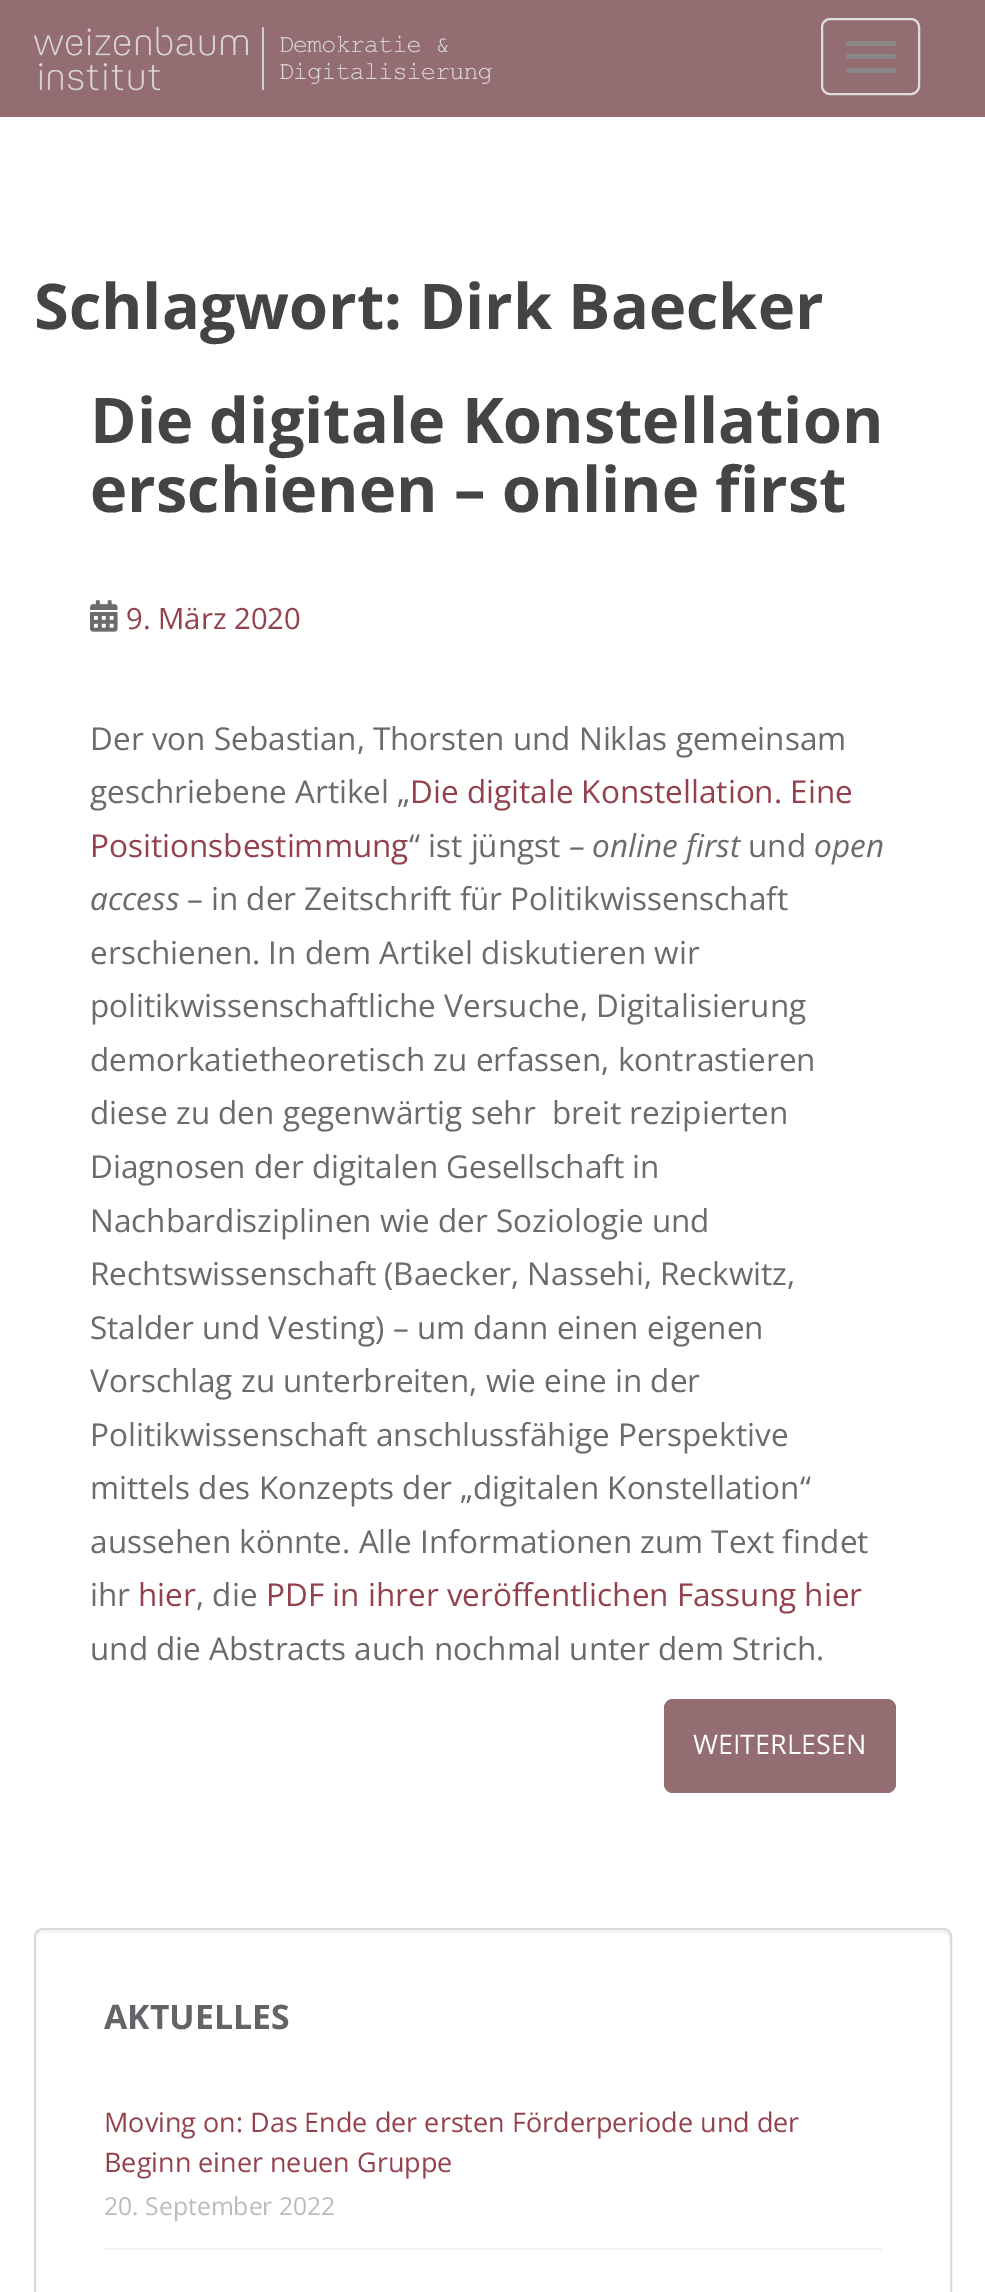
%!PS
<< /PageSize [985 2292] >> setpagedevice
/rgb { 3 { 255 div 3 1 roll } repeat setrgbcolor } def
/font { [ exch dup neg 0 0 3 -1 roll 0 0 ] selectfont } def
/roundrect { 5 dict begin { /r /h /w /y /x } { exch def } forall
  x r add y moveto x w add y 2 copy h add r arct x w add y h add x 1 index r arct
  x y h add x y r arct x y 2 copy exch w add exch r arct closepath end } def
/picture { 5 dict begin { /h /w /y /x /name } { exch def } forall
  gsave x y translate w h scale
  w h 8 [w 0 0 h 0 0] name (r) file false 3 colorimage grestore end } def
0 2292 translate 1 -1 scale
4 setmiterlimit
255 255 255 rgb
0 0 985 2292 rectfill
147 109 114 rgb
0 0 985 117 rectfill
(img/1.rgb) 34 26 458 65 picture
221 221 221 rgb
2 setlinewidth
822 19 97 75 8 roundrect stroke
136 136 136 rgb
846 41 50 5 2.5 roundrect fill
846 54 50 5 2.5 roundrect fill
846 68 50 5 2.5 roundrect fill
(img/2.rgb) 90 600 28 32 picture
147 109 114 rgb
664 1699 232 94 9 roundrect fill
242 242 242 rgb
43 1933 moveto 943 1933 lineto 946 1933 950 1936 950 1940 curveto 950 1936 948 1931 943 1931 curveto 43 1931 lineto 38 1931 36 1936 36 1940 curveto 36 1936 39 1933 43 1933 curveto closepath fill
218 218 218 rgb
35 1929 916 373 8 roundrect stroke
242 242 242 rgb
104 2248 778 2 rectfill
/OpenSans-Bold 63 font
68 68 68 rgb
[
  [(Schlagwort: Dirk Baecker) 34 329]
  [(Die digitale Konstellation) 90 443]
  [(erschienen – online first) 90 512]
] { aload pop moveto show } forall
/OpenSans-Regular 29.25 font
147 66 77 rgb
126 629 moveto (9. März 2020) show
/OpenSans-Regular 31.5 font
107 107 107 rgb
90 750 moveto (Der von Sebastian, Thorsten und Niklas gemeinsam) show
90 803 moveto (geschriebene Artikel „) show
147 66 77 rgb
410 803 moveto (Die digitale Konstellation. Eine) show
90 857 moveto (Positionsbestimmung) show
107 107 107 rgb
409 857 moveto (“ ist jüngst –) show
/OpenSans-Italic 31.5 font
592 857 moveto (online first) show
/OpenSans-Regular 31.5 font
748 857 moveto (und) show
/OpenSans-Italic 31.5 font
814 857 moveto (open) show
90 910 moveto (access) show
/OpenSans-Regular 31.5 font
[
  [(– in der Zeitschrift für Politikwissenschaft) 187 910]
  [(erschienen. In dem Artikel diskutieren wir) 90 964]
  [(politikwissenschaftliche Versuche, Digitalisierung) 90 1017]
  [(demorkatietheoretisch zu erfassen, kontrastieren) 90 1071]
  [(diese zu den gegenwärtig sehr  breit rezipierten) 90 1124]
  [(Diagnosen der digitalen Gesellschaft in) 90 1178]
  [(Nachbardisziplinen wie der Soziologie und) 90 1232]
  [(Rechtswissenschaft \(Baecker, Nassehi, Reckwitz,) 90 1285]
  [(Stalder und Vesting\) – um dann einen eigenen) 90 1339]
  [(Vorschlag zu unterbreiten, wie eine in der) 90 1392]
  [(Politikwissenschaft anschlussfähige Perspektive) 90 1446]
  [(mittels des Konzepts der „digitalen Konstellation“) 90 1499]
  [(aussehen könnte. Alle Informationen zum Text findet) 90 1553]
  [(ihr) 90 1606]
] { aload pop moveto show } forall
147 66 77 rgb
138 1606 moveto (hier) show
107 107 107 rgb
196 1606 moveto (, die) show
147 66 77 rgb
266 1606 moveto (PDF in ihrer veröffentlichen Fassung hier) show
107 107 107 rgb
90 1660 moveto (und die Abstracts auch nochmal unter dem Strich.) show
/OpenSans-Regular 27 font
255 255 255 rgb
693 1754 moveto (WEITERLESEN) show
/OpenSans-Bold 33.75 font
99 100 103 rgb
104 2029 moveto (AKTUELLES) show
/OpenSans-Regular 27 font
147 66 77 rgb
104 2132 moveto (Moving on: Das Ende der ersten Förderperiode und der) show
104 2172 moveto (Beginn einer neuen Gruppe) show
/OpenSans-Regular 24.75 font
187 187 187 rgb
104 2215 moveto (20. September 2022) show
showpage
